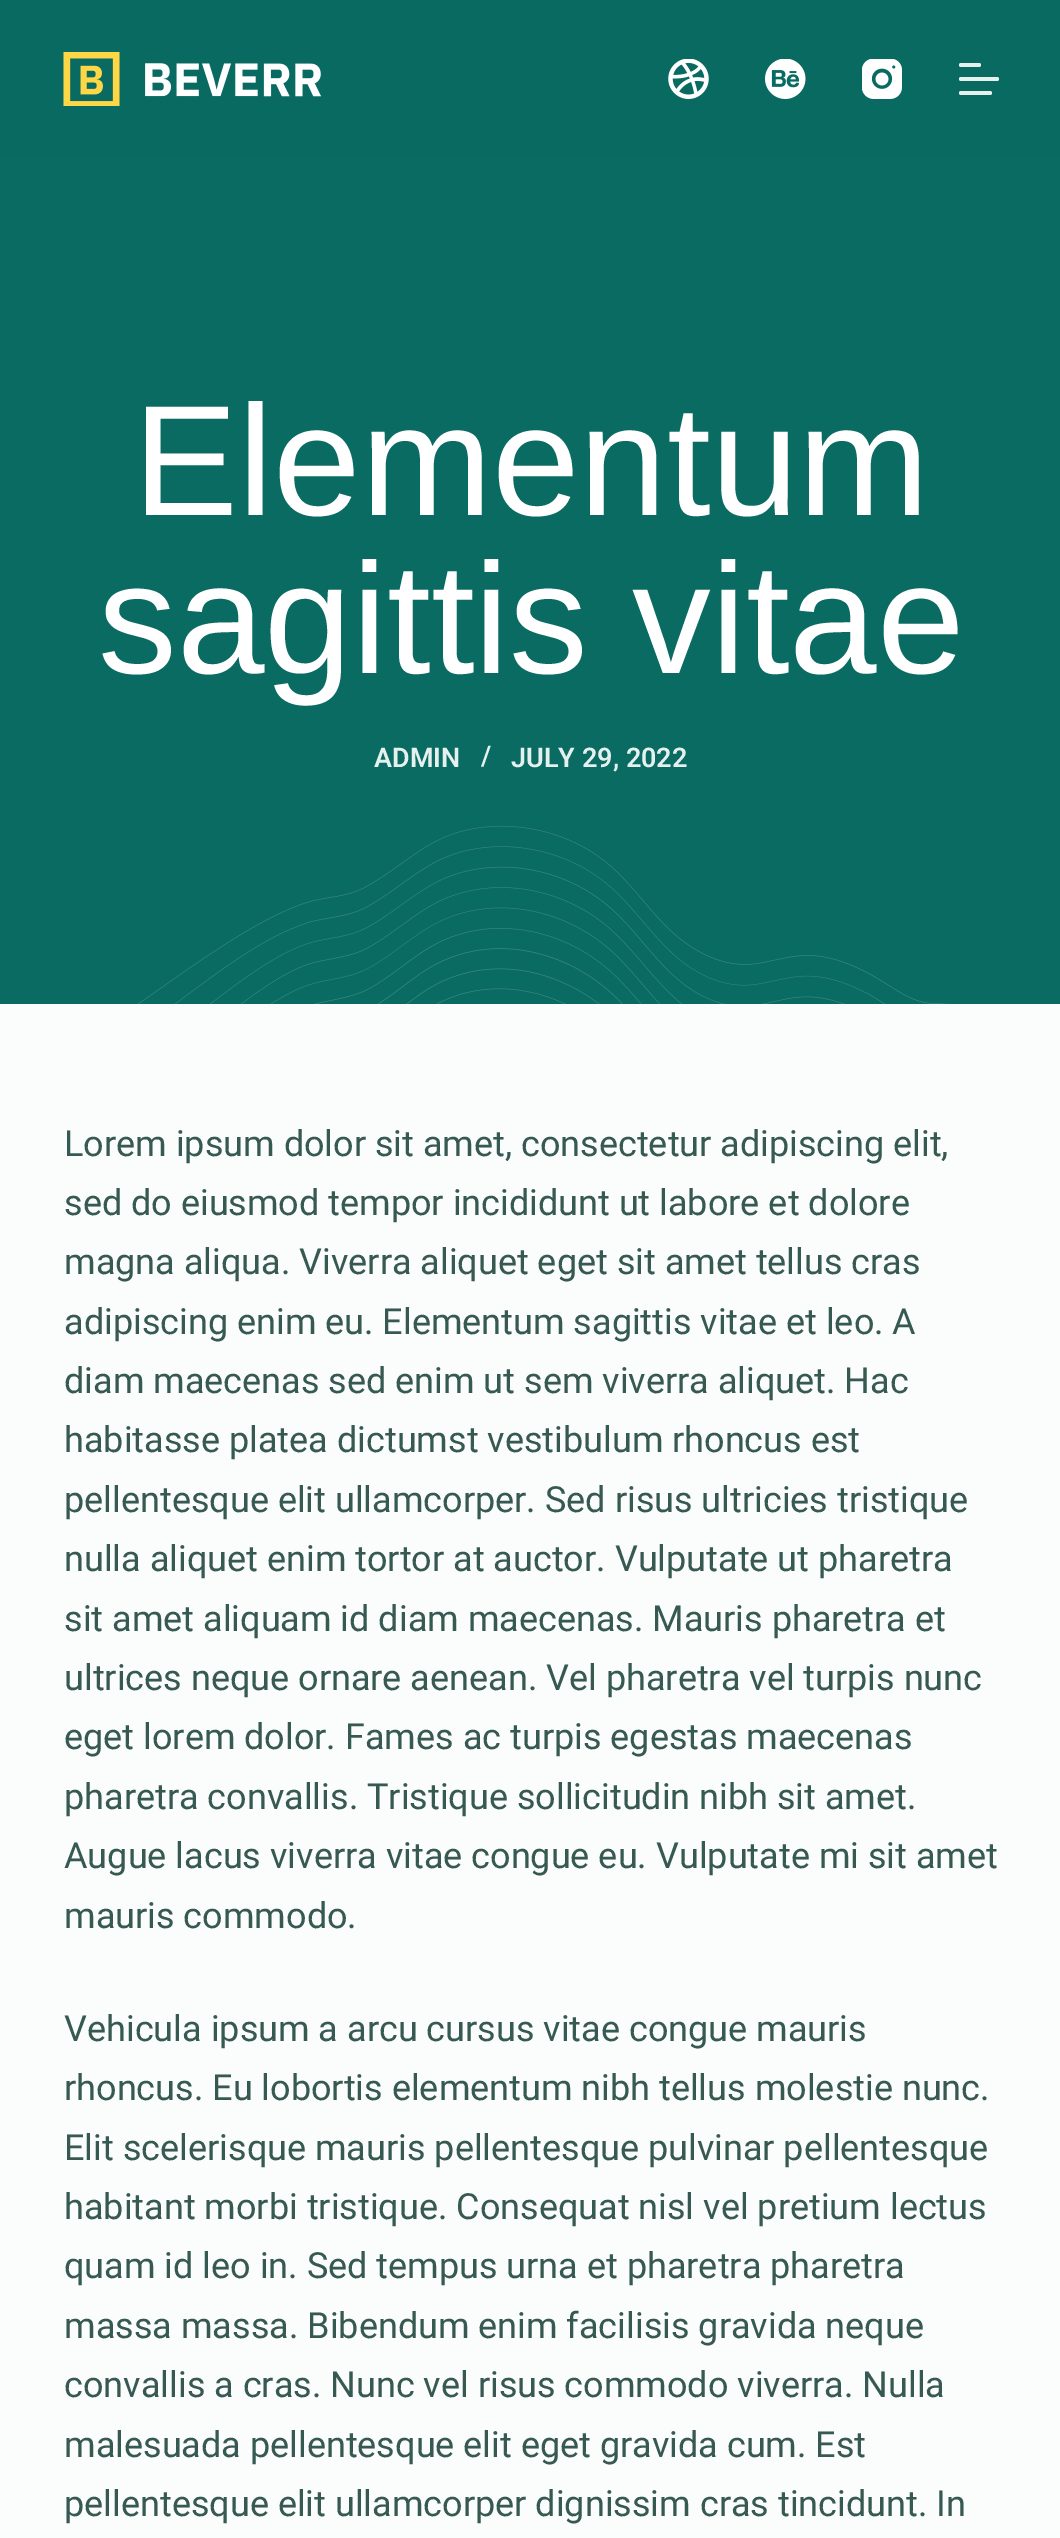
%!PS
<< /PageSize [1060 2538] >> setpagedevice
/rgb { 3 { 255 div 3 1 roll } repeat setrgbcolor } def
/font { [ exch dup neg 0 0 3 -1 roll 0 0 ] selectfont } def
/roundrect { 5 dict begin { /r /h /w /y /x } { exch def } forall
  x r add y moveto x w add y 2 copy h add r arct x w add y h add x 1 index r arct
  x y h add x y r arct x y 2 copy exch w add exch r arct closepath end } def
/picture { 5 dict begin { /h /w /y /x /name } { exch def } forall
  gsave x y translate w h scale
  w h 8 [w 0 0 h 0 0] name (r) file false 3 colorimage grestore end } def
0 2538 translate 1 -1 scale
4 setmiterlimit
251 252 252 rgb
0 0 1060 2538 rectfill
9 106 97 rgb
0 0 1060 158 rectfill
(img/1.rgb) 63 52 258 54 picture
(img/2.rgb) 668 59 41 40 picture
(img/3.rgb) 765 59 41 40 picture
(img/4.rgb) 862 59 40 40 picture
230 240 238 rgb
959 63 22 4 2 roundrect fill
959 77 40 4 2 roundrect fill
959 91 33 4 2 roundrect fill
9 107 97 rgb
0 158 1060 846 rectfill
(img/5.rgb) 137 825 814 179 picture
/LiberationSans-Regular 157.5 font
255 255 255 rgb
133 515 moveto (Elementum) show
98 673 moveto (sagittis vitae) show
/Roboto-SemiBold 27 font
230 240 238 rgb
[
  [(ADMIN) 374 767]
  [(/) 481 765]
  [(JULY 29, 2022) 511 767]
] { aload pop moveto show } forall
/Roboto-Regular 36 font
54 89 81 rgb
[
  [(Lorem ipsum dolor sit amet, consectetur adipiscing elit,) 64 1156]
  [(sed do eiusmod tempor incididunt ut labore et dolore) 64 1215]
  [(magna aliqua. Viverra aliquet eget sit amet tellus cras) 64 1274]
  [(adipiscing enim eu. Elementum sagittis vitae et leo. A) 64 1334]
  [(diam maecenas sed enim ut sem viverra aliquet. Hac) 64 1393]
  [(habitasse platea dictumst vestibulum rhoncus est) 64 1452]
  [(pellentesque elit ullamcorper. Sed risus ultricies tristique) 64 1512]
  [(nulla aliquet enim tortor at auctor. Vulputate ut pharetra) 64 1571]
  [(sit amet aliquam id diam maecenas. Mauris pharetra et) 64 1631]
  [(ultrices neque ornare aenean. Vel pharetra vel turpis nunc) 64 1690]
  [(eget lorem dolor. Fames ac turpis egestas maecenas) 64 1749]
  [(pharetra convallis. Tristique sollicitudin nibh sit amet.) 64 1809]
  [(Augue lacus viverra vitae congue eu. Vulputate mi sit amet) 64 1868]
  [(mauris commodo.) 64 1928]
  [(Vehicula ipsum a arcu cursus vitae congue mauris) 64 2041]
  [(rhoncus. Eu lobortis elementum nibh tellus molestie nunc.) 64 2100]
  [(Elit scelerisque mauris pellentesque pulvinar pellentesque) 64 2160]
  [(habitant morbi tristique. Consequat nisl vel pretium lectus) 64 2219]
  [(quam id leo in. Sed tempus urna et pharetra pharetra) 64 2278]
  [(massa massa. Bibendum enim facilisis gravida neque) 64 2338]
  [(convallis a cras. Nunc vel risus commodo viverra. Nulla) 64 2397]
  [(malesuada pellentesque elit eget gravida cum. Est) 64 2457]
  [(pellentesque elit ullamcorper dignissim cras tincidunt. In) 64 2516]
] { aload pop moveto show } forall
showpage
